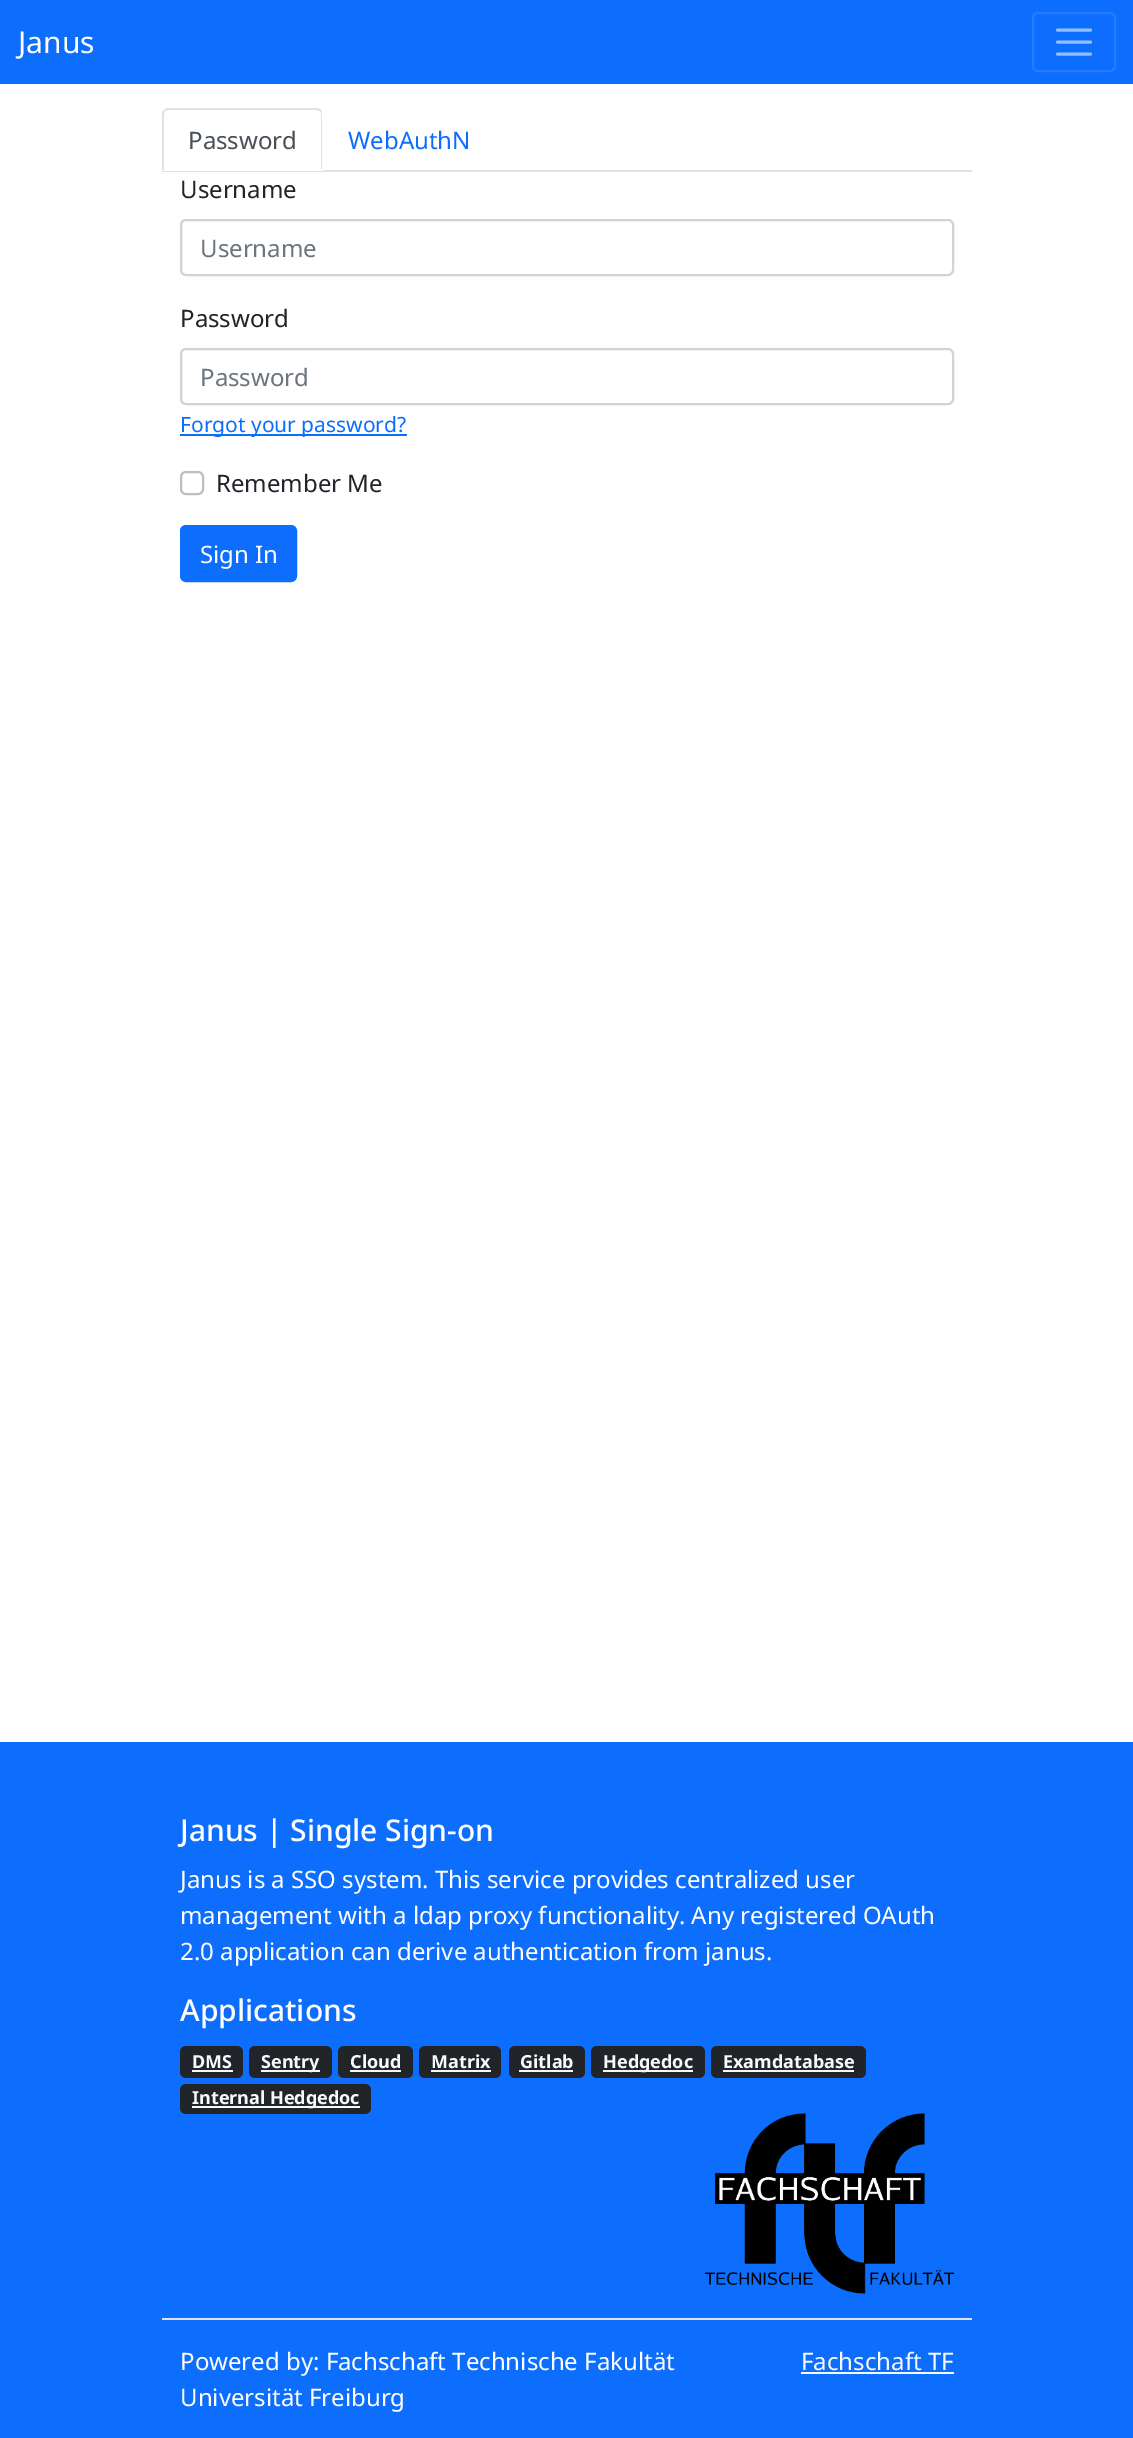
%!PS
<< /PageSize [1133 2438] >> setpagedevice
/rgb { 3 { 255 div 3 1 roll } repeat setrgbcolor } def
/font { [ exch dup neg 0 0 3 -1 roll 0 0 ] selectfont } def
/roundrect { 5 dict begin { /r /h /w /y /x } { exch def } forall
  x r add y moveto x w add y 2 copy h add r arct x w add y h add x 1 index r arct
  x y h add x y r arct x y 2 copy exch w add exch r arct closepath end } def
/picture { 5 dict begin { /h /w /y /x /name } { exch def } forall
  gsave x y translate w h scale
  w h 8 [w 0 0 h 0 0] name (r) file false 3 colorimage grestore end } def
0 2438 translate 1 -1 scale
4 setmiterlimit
255 255 255 rgb
0 0 1133 2438 rectfill
13 110 253 rgb
0 0 1133 84 rectfill
37 125 253 rgb
2 setlinewidth
1033 13 82 58 5 roundrect stroke
146 190 254 rgb
3 setlinewidth
1 setlinecap
1057.5 30 moveto 1090.5 30 lineto 1057.5 42 moveto 1090.5 42 lineto 1057.5 54 moveto 1090.5 54 lineto stroke
222 226 230 rgb
162 170 810 2 rectfill
255 255 255 rgb
168 108 moveto 317 108 lineto 320.5 108 323 110.5 323 114 curveto 323 171 lineto 162 171 lineto 162 114 lineto 162 110.5 164.5 108 168 108 curveto closepath fill
222 226 230 rgb
168 108 moveto 166 108 165 109 164 110 curveto 165 111 lineto 166 110 167 110 168 110 curveto 316 110 lineto 317 110 319 110 319 111 curveto 321 110 lineto 320 109 318 108 316 108 curveto closepath fill
321 110 moveto 322 111 322 113 322 114 curveto 322 170 lineto 321 170 lineto 321 113 lineto 319 111 lineto closepath fill
162 171 moveto 164 169 lineto 164 114 lineto 165 111 lineto 164 110 lineto 163 111 162 112 162 114 curveto closepath fill
206 212 218 rgb
2 setlinewidth
0 setlinecap
181 220 772 55 5 roundrect stroke
181 349 772 55 5 roundrect stroke
13 110 253 rgb
180 434 227 2 rectfill
191 191 191 rgb
181 472 22 22 5 roundrect stroke
13 110 253 rgb
181 526 115 55 5 roundrect gsave fill grestore
stroke
0 1742 1133 696 rectfill
222 226 230 rgb
162 2318 810 2 rectfill
33 37 41 rgb
180 2046 63 32 6 roundrect fill
248 249 250 rgb
192 2070 41 2 rectfill
33 37 41 rgb
249 2046 83 32 6 roundrect fill
248 249 250 rgb
261 2070 59 2 rectfill
33 37 41 rgb
338 2046 75 32 6 roundrect fill
248 249 250 rgb
350 2070 51 2 rectfill
33 37 41 rgb
419 2046 82 32 6 roundrect fill
248 249 250 rgb
431 2070 60 2 rectfill
33 37 41 rgb
509 2046 76 32 6 roundrect fill
248 249 250 rgb
519 2070 54 2 rectfill
33 37 41 rgb
591 2046 114 32 6 roundrect fill
248 249 250 rgb
603 2070 90 2 rectfill
33 37 41 rgb
711 2046 155 32 6 roundrect fill
248 249 250 rgb
723 2070 131 2 rectfill
33 37 41 rgb
180 2084 191 30 6 roundrect fill
248 249 250 rgb
192 2106 168 2 rectfill
(img/1.rgb) 705 2113 249 181 picture
801 2372 153 2 rectfill
/NotoSans-Regular 30 font
255 255 255 rgb
18 53 moveto (Janus) show
/NotoSans-Regular 24 font
73 80 87 rgb
188 149 moveto (Password) show
13 110 253 rgb
348 149 moveto (WebAuthN) show
33 37 41 rgb
180 198 moveto (Username) show
108 117 125 rgb
200 257 moveto (Username) show
33 37 41 rgb
180 327 moveto (Password) show
108 117 125 rgb
200 386 moveto (Password) show
/NotoSans-Regular 21 font
13 110 253 rgb
180 432 moveto (Forgot your password?) show
/NotoSans-Regular 24 font
33 37 41 rgb
216 492 moveto (Remember Me) show
255 255 255 rgb
200 563 moveto (Sign In) show
/NotoSans-Medium 30 font
180 1841 moveto (Janus | Single Sign-on) show
/NotoSans-Regular 24 font
[
  [(Janus is a SSO system. This service provides centralized user) 180 1888]
  [(management with a ldap proxy functionality. Any registered OAuth) 180 1924]
  [(2.0 application can derive authentication from janus.) 180 1960]
] { aload pop moveto show } forall
/NotoSans-Medium 30 font
180 2021 moveto (Applications) show
/NotoSans-Bold 18 font
248 249 250 rgb
[
  [(DMS) 192 2068]
  [(Sentry) 261 2068]
  [(Cloud) 350 2068]
  [(Matrix) 431 2068]
  [(Gitlab) 520 2068]
  [(Hedgedoc) 603 2068]
  [(Examdatabase) 723 2068]
  [(Internal Hedgedoc) 192 2104]
] { aload pop moveto show } forall
/NotoSans-Regular 24 font
255 255 255 rgb
180 2370 moveto (Powered by: Fachschaft Technische Fakultät) show
180 2406 moveto (Universität Freiburg) show
248 249 250 rgb
801 2370 moveto (Fachschaft TF) show
showpage
